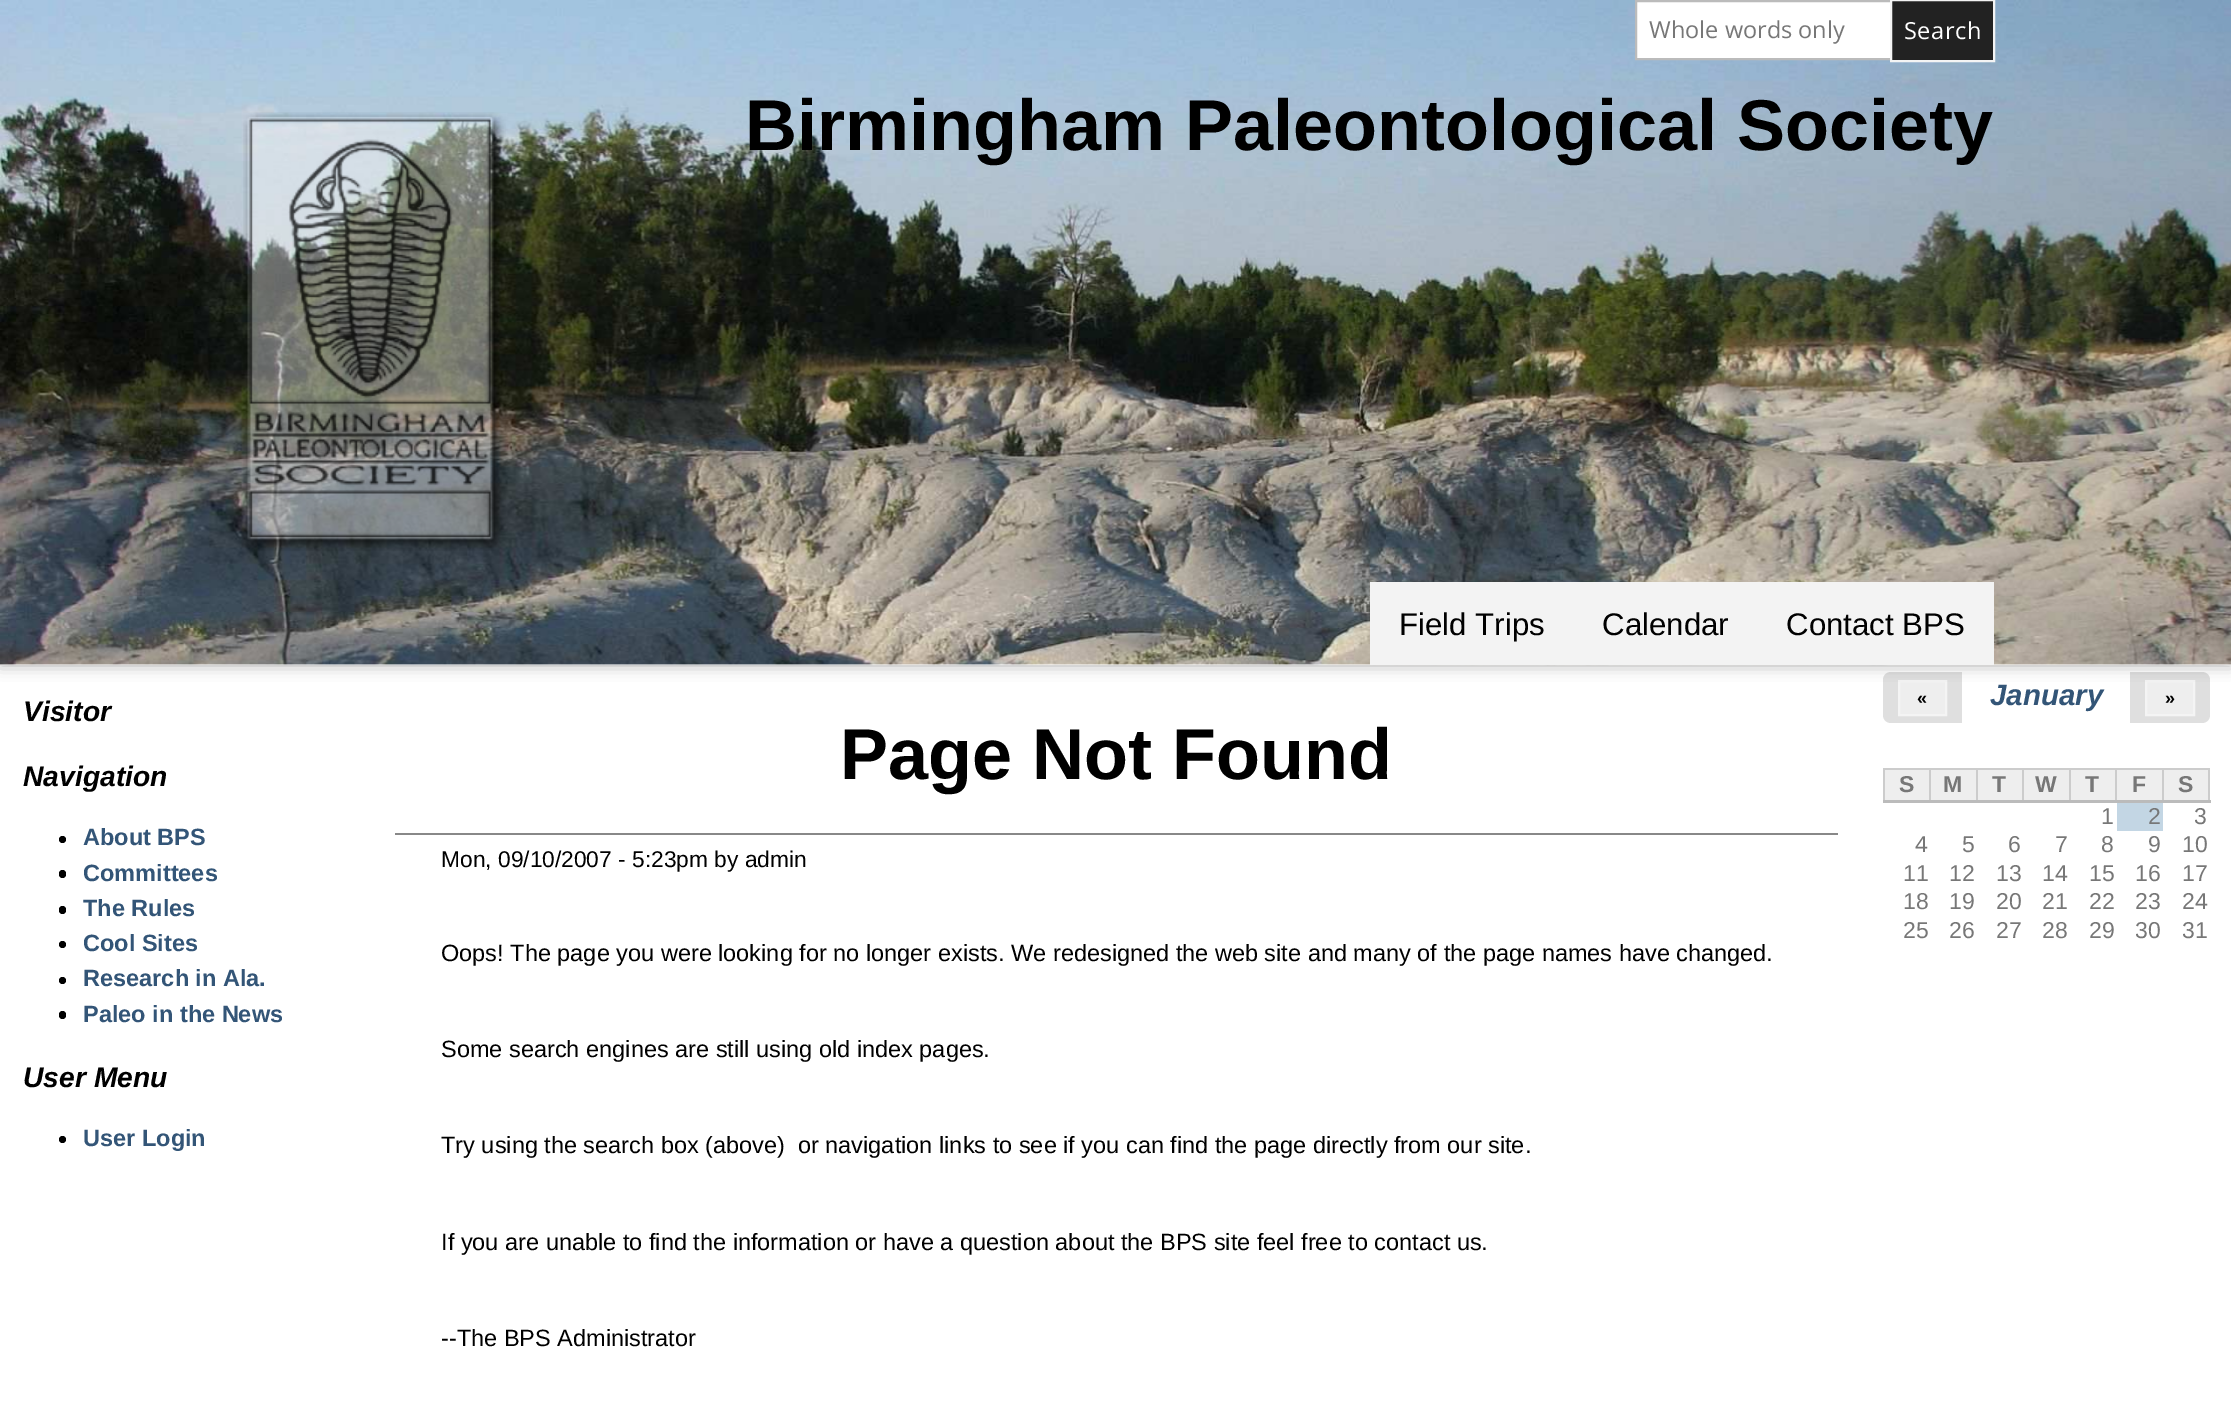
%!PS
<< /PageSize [2231 1409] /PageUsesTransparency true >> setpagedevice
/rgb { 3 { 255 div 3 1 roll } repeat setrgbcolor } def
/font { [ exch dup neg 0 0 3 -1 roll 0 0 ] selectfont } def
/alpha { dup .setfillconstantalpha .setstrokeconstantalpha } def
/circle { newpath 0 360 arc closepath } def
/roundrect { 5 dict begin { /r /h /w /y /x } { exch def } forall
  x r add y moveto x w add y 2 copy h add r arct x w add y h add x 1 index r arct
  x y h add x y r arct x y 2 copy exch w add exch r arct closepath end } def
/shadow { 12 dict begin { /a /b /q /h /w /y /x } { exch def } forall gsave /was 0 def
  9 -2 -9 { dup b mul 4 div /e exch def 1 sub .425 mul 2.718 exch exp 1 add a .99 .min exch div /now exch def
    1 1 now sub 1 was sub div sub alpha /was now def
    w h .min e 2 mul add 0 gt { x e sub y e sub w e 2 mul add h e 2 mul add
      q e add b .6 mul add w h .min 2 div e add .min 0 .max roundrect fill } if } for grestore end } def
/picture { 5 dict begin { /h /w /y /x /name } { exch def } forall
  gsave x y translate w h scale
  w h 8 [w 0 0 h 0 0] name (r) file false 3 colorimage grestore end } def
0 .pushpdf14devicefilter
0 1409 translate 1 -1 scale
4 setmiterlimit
255 255 255 rgb
0 0 2231 1409 rectfill
223 223 223 rgb
1891 672 moveto 1962 672 lineto 1962 723 lineto 1891 723 lineto 1886.5 723 1883 719.5 1883 715 curveto 1883 680 lineto 1883 675.5 1886.5 672 1891 672 curveto closepath fill
238 238 238 rgb
1899 681 moveto 1946 681 lineto 1946 715 lineto 1899 715 lineto closepath gsave fill grestore
244 244 244 rgb
2 setlinewidth
stroke
223 223 223 rgb
2130 672 moveto 2202 672 lineto 2206.5 672 2210 675.5 2210 680 curveto 2210 715 lineto 2210 719.5 2206.5 723 2202 723 curveto 2130 723 lineto closepath fill
238 238 238 rgb
2146 681 moveto 2194 681 lineto 2194 715 lineto 2146 715 lineto closepath gsave fill grestore
244 244 244 rgb
stroke
0 0 0 rgb
0 0 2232 665 0 7.5 0.33 shadow
255 255 255 rgb
0 664 2231 1 rectfill
(img/1.rgb) 0 0 2231 666 picture
1636 1 moveto 1891 1 lineto 1891 59 lineto 1636 59 lineto closepath gsave fill grestore
187 187 187 rgb
stroke
34 34 34 rgb
1892 1 101 59 rectfill
244 244 244 rgb
1891 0 103 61 rectstroke
(img/2.rgb) 243 112 263 439 picture
243 243 243 rgb
1370 582 624 83 rectfill
0 0 0 rgb
62.5 839.5 3.5 circle fill
59 870 7 8 3.5 roundrect fill
59 906 7 8 3.5 roundrect fill
62.5 944.5 3.5 circle fill
62.5 980.5 3.5 circle fill
59 1011 7 8 3.5 roundrect fill
62.5 1139.5 3.5 circle fill
[
  [395 833 1443 2 136 136 136]
  [2162 768 48 2 204 204 204]
  [2162 768 2 35 204 204 204]
  [2115 768 48 2 204 204 204]
  [2115 768 2 35 204 204 204]
  [2069 768 48 2 204 204 204]
  [2069 768 2 35 204 204 204]
  [2022 768 48 2 204 204 204]
  [2022 768 2 35 204 204 204]
  [1976 768 48 2 204 204 204]
  [1976 768 2 35 204 204 204]
  [1929 768 48 2 204 204 204]
  [1929 768 2 35 204 204 204]
  [1883 768 48 2 204 204 204]
  [1883 768 2 35 204 204 204]
  [2208 768 2 35 204 204 204]
  [1883 800 328 3 187 187 187]
  [1885 770 44 30 238 238 238]
  [1931 770 45 30 238 238 238]
  [1978 770 44 30 238 238 238]
  [2024 770 45 30 238 238 238]
  [2071 770 44 30 238 238 238]
  [2117 770 45 30 238 238 238]
  [2164 770 44 30 238 238 238]
  [2117 803 46 28 195 214 228]
] { aload pop rgb rectfill } forall
/OpenSans-Regular 23.52 font
119 119 119 rgb
1649 38 moveto (Whole words only) show
255 255 255 rgb
1904 39 moveto 0.5 0 (Search) ashow
/LiberationSans-Bold 72 font
0 0 0 rgb
745 150 moveto (Birmingham Paleontological Society) show
/LiberationSans-Regular 31.25 font
[
  [(Field Trips) 1399 635]
  [(Calendar) 1602 635]
  [(Contact BPS) 1786 635]
] { aload pop moveto show } forall
/LiberationSans-BoldItalic 28.25 font
23 721 moveto (Visitor) show
23 786 moveto (Navigation) show
/LiberationSans-Bold 23.52 font
51 85 119 rgb
[
  [(About BPS) 83 845]
  [(Committees) 83 881]
  [(The Rules) 83 916]
  [(Cool Sites) 83 951]
  [(Research in Ala.) 83 986]
  [(Paleo in the News) 83 1022]
] { aload pop moveto show } forall
/LiberationSans-BoldItalic 28.25 font
0 0 0 rgb
23 1087 moveto (User Menu) show
/LiberationSans-Bold 23.52 font
51 85 119 rgb
83 1146 moveto (User Login) show
/LiberationSans-Bold 72 font
0 0 0 rgb
840 779 moveto (Page Not Found) show
/LiberationSans-Regular 22.75 font
441 867 moveto (Mon, 09/10/2007 - 5:23pm by admin) show
/LiberationSans-Regular 23.52 font
[
  [(Oops! The page you were looking for no longer exists. We redesigned the web site and many of the page names have changed.) 441 961]
  [(Some search engines are still using old index pages.) 441 1057]
  [(Try using the search box \(above\)  or navigation links to see if you can find the page directly from our site.) 441 1153]
  [(If you are unable to find the information or have a question about the BPS site feel free to contact us.) 441 1250]
  [(--The BPS Administrator) 441 1346]
] { aload pop moveto show } forall
/LiberationSans-BoldItalic 29.5 font
51 85 119 rgb
1990 705 moveto (January) show
/LiberationSans-Bold 18 font
0 0 0 rgb
1917 704 moveto («) show
2165 704 moveto (») show
/LiberationSans-Bold 23 font
119 119 119 rgb
[
  [(S) 1899 792]
  [(M) 1943 792]
  [(T) 1992 792]
  [(W) 2035 792]
  [(T) 2085 792]
  [(F) 2132 792]
  [(S) 2178 792]
] { aload pop moveto show } forall
/LiberationSans-Regular 23 font
[
  [(1) 2101 824]
  [(2) 2148 824]
  [(3) 2194 824]
  [(4) 1915 852]
  [(5) 1962 852]
  [(6) 2008 852]
  [(7) 2055 852]
  [(8) 2101 852]
  [(9) 2148 852]
  [(10) 2182 852]
  [(11) 1903 881]
  [(12) 1949 881]
  [(13) 1996 881]
  [(14) 2042 881]
  [(15) 2089 881]
  [(16) 2135 881]
  [(17) 2182 881]
  [(18) 1903 909]
  [(19) 1949 909]
  [(20) 1996 909]
  [(21) 2042 909]
  [(22) 2089 909]
  [(23) 2135 909]
  [(24) 2182 909]
  [(25) 1903 938]
  [(26) 1949 938]
  [(27) 1996 938]
  [(28) 2042 938]
  [(29) 2089 938]
  [(30) 2135 938]
  [(31) 2182 938]
] { aload pop moveto show } forall
.poppdf14devicefilter showpage
